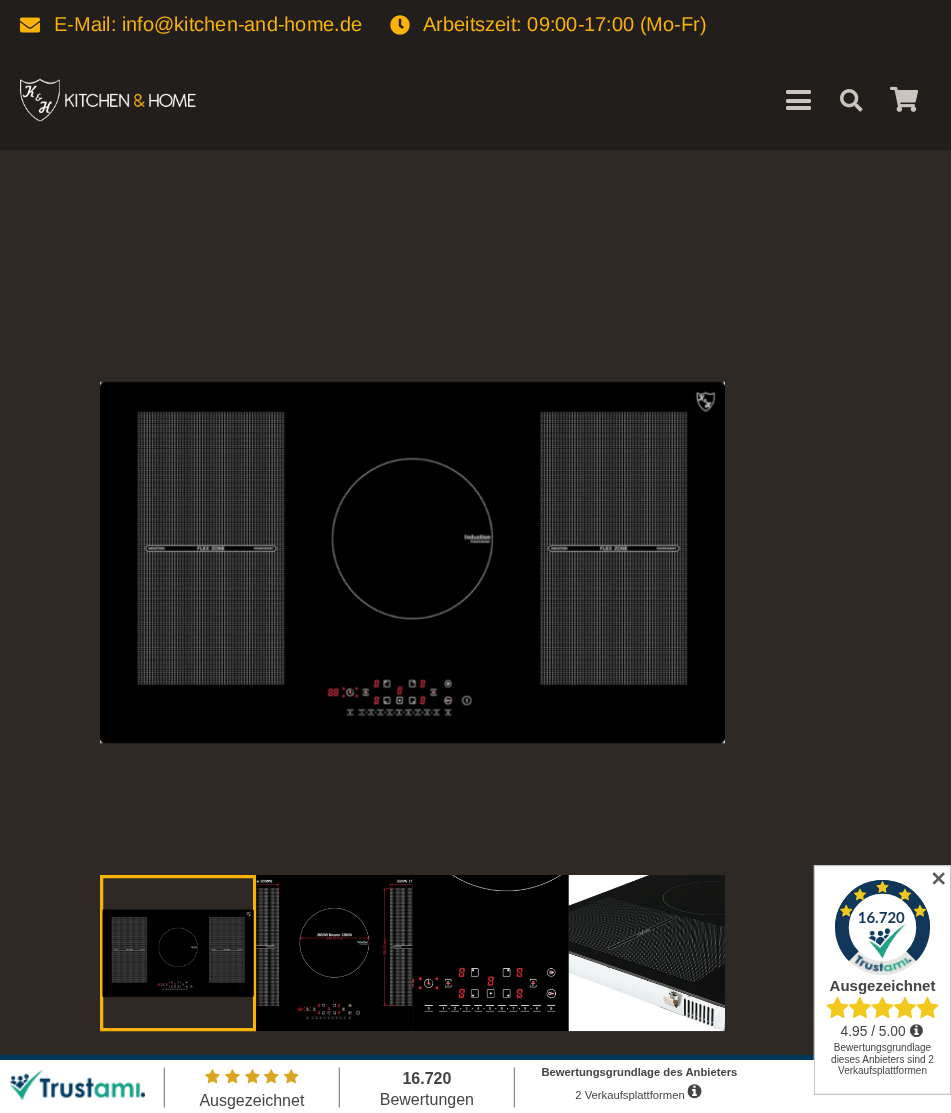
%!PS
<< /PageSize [951 1113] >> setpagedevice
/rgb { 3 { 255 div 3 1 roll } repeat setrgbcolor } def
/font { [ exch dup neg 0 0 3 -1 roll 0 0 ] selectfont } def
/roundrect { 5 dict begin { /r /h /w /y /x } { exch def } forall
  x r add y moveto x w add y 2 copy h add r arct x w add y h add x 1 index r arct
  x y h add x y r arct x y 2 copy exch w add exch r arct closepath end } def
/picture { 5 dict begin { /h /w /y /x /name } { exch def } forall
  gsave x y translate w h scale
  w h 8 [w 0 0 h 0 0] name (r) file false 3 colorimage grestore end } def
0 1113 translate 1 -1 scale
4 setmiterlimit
46 41 37 rgb
0 0 951 1113 rectfill
33 30 27 rgb
0 0 951 150 rectfill
(img/1.rgb) 20 17 20 16 picture
(img/2.rgb) 390 15 20 20 picture
42 38 34 rgb
0 150 951 1 rectfill
(img/3.rgb) 20 78 176 44 picture
204 196 188 rgb
786 99 25 4 2 roundrect fill
786 90 25 4 2 roundrect fill
786 106 25 4 2 roundrect fill
(img/4.rgb) 840 89 23 23 picture
(img/5.rgb) 890 86 29 26 picture
(img/6.rgb) 100 381 625 363 picture
250 178 7 rgb
3 setlinewidth
101.5 876.5 153 153 rectstroke
(img/7.rgb) 102 909 152 89 picture
(img/8.rgb) 256 875 157 156 picture
(img/9.rgb) 412 875 157 156 picture
(img/10.rgb) 568 875 157 157 picture
(img/12.rgb) 0 1055 951 58 picture
(img/11.rgb) 813 865 138 230 picture
/LiberationSans-Regular 20 font
54 31 moveto (E-Mail: info@kitchen-and-home.de) show
423 31 moveto (Arbeitszeit: 09:00-17:00 \(Mo-Fr\)) show
/DejaVuSans-Bold 20 font
89 89 89 rgb
930 886 moveto (✕) show
showpage
